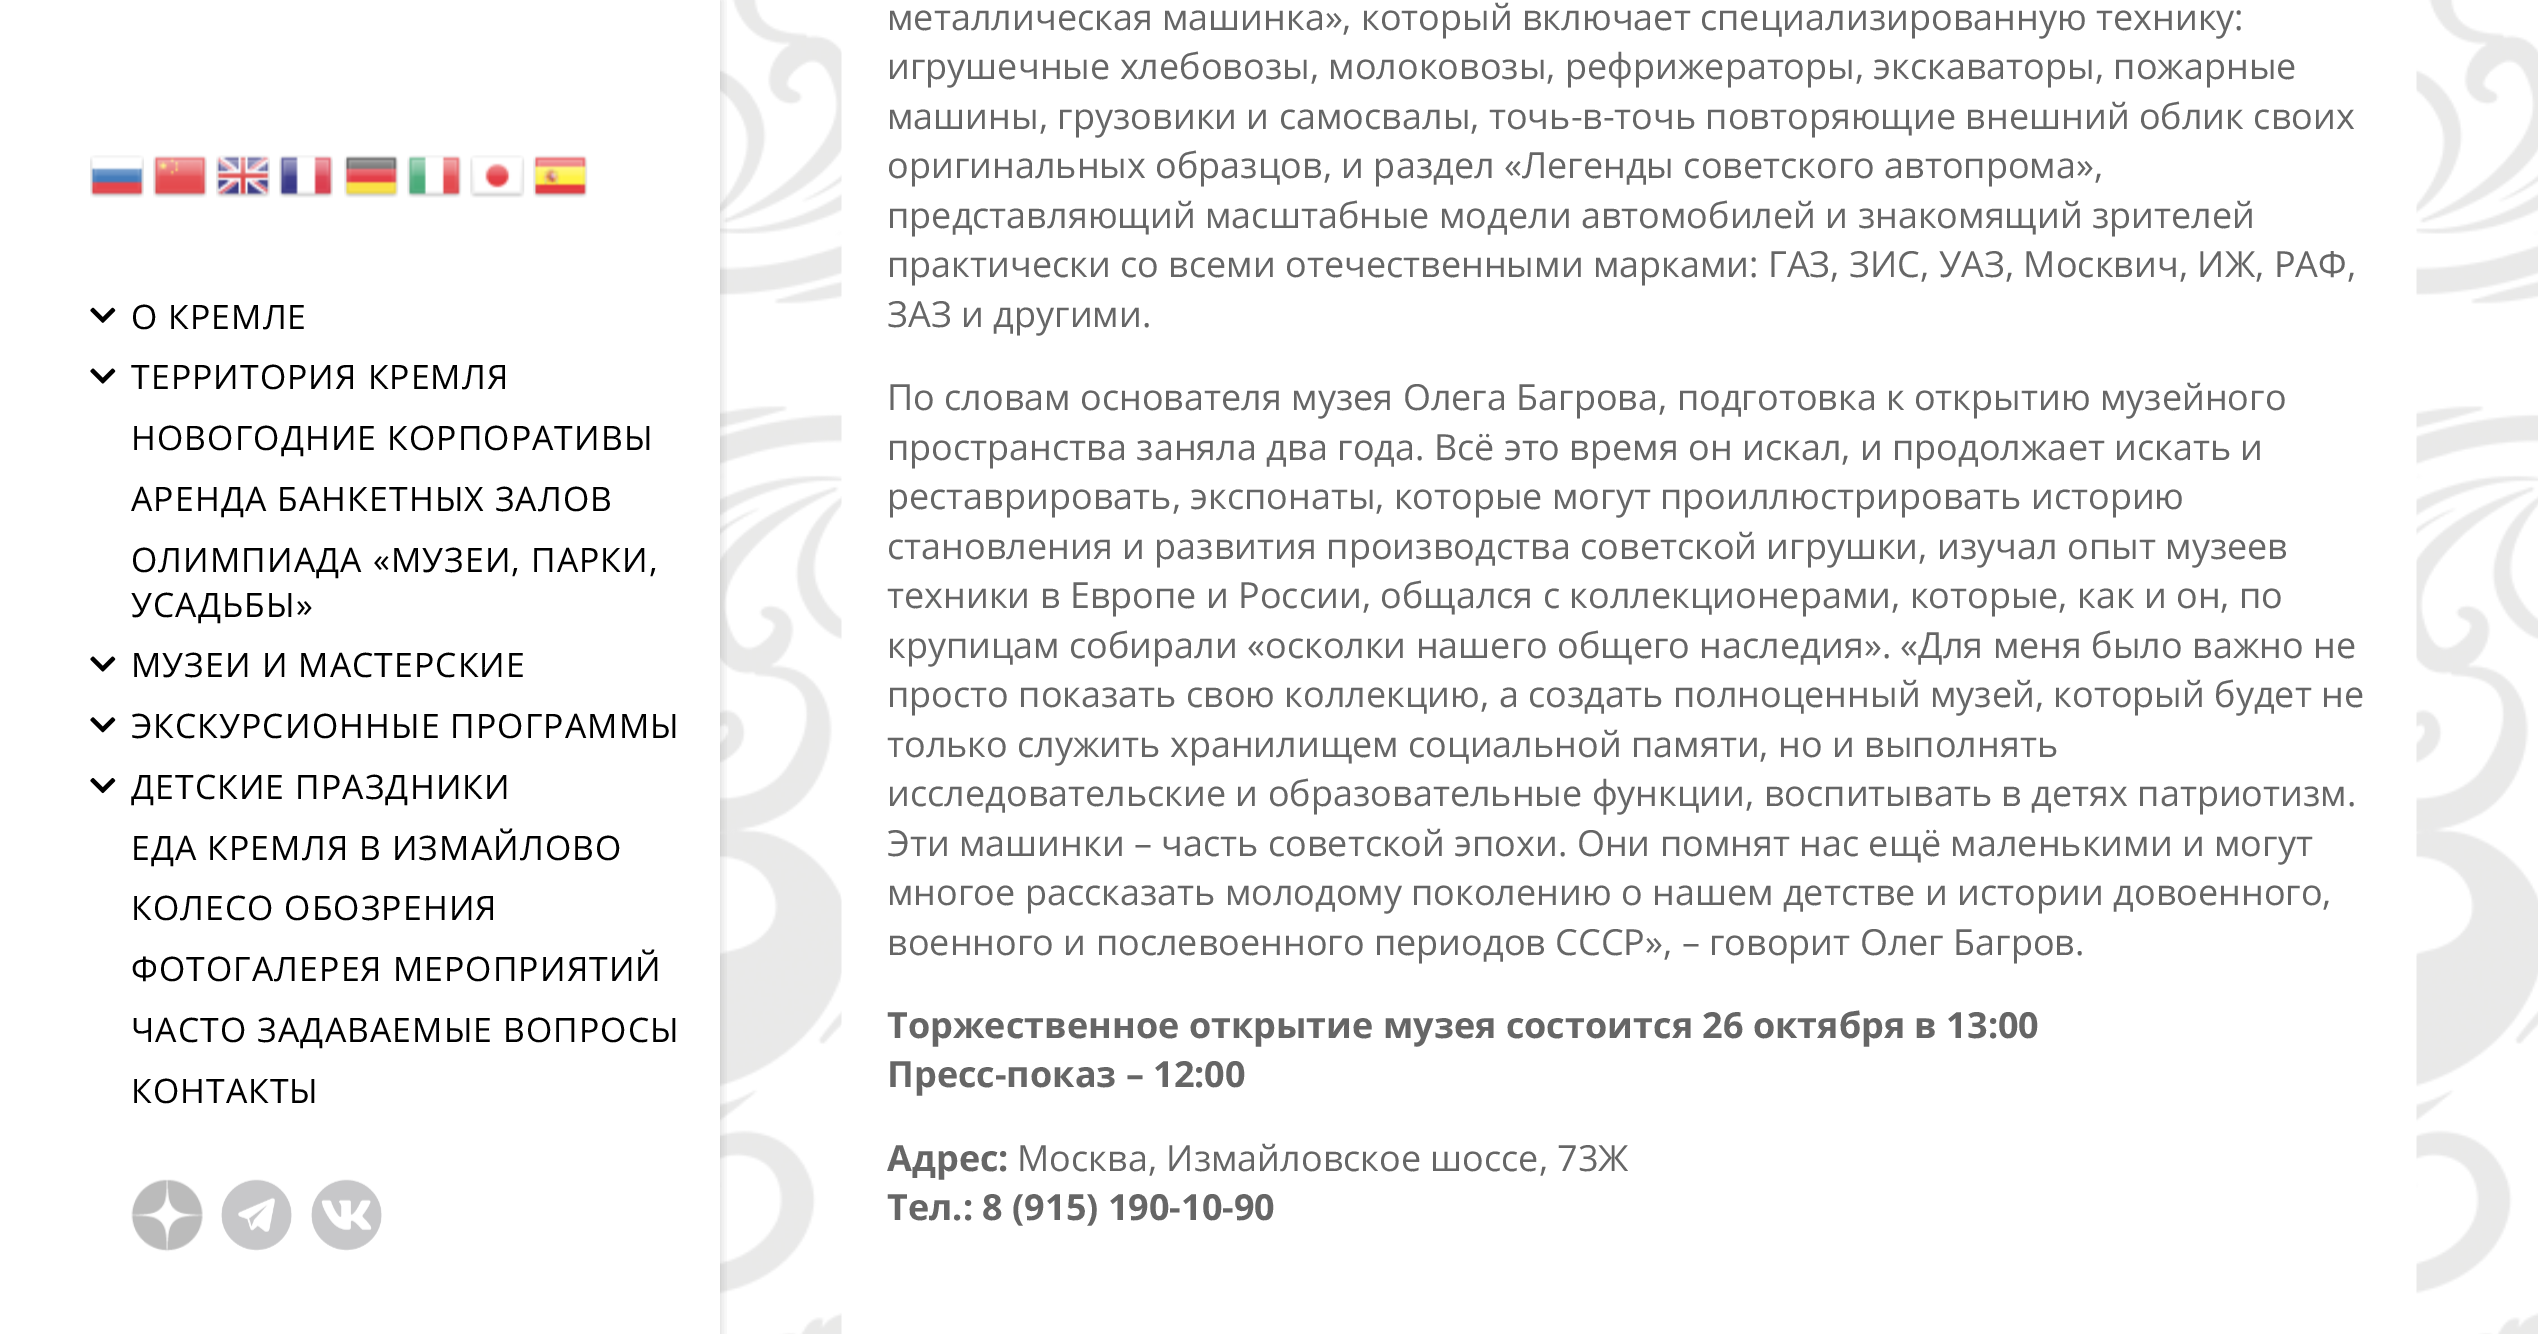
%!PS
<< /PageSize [2538 1334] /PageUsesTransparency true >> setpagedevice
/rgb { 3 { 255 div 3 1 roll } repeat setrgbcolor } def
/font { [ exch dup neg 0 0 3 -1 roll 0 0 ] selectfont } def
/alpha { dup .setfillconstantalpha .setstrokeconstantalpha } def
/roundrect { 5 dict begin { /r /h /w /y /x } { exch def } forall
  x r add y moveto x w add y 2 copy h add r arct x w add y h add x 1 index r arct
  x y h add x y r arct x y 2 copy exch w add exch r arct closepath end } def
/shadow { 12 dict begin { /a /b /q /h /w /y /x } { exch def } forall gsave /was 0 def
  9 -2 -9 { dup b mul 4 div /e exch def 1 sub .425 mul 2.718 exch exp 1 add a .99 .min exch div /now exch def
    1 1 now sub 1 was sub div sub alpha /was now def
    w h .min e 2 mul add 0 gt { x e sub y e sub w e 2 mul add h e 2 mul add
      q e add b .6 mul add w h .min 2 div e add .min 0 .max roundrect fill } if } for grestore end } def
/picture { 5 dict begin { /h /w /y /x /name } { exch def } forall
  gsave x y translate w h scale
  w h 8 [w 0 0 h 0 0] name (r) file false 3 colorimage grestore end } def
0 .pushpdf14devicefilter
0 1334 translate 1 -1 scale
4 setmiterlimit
255 255 255 rgb
0 0 2538 1334 rectfill
(img/16.rgb) 720 0 122 1334 picture
gsave
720 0 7 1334 rectclip
0 0 0 rgb
0 0 720 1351 0 5.5 0.18 shadow
grestore
(img/1.rgb) 90 155 54 43 picture
(img/2.rgb) 153 155 54 43 picture
(img/3.rgb) 216 155 54 43 picture
(img/4.rgb) 279 155 54 43 picture
(img/5.rgb) 344 155 55 43 picture
(img/6.rgb) 407 155 55 43 picture
(img/7.rgb) 470 155 55 43 picture
(img/8.rgb) 533 155 55 43 picture
(img/9.rgb) 90 307 26 16 picture
(img/10.rgb) 90 368 26 16 picture
(img/10.rgb) 90 656 26 16 picture
(img/11.rgb) 90 717 26 16 picture
(img/12.rgb) 90 778 26 16 picture
(img/13.rgb) 131 1179 72 73 picture
(img/14.rgb) 221 1179 71 72 picture
(img/15.rgb) 311 1179 71 72 picture
(img/17.rgb) 2416 0 122 1334 picture
/OpenSans-Regular 33.75 font
0 0 0 rgb
131 329 moveto 1.1 0 (О КРЕМЛЕ) ashow
131 389 moveto 1.1 0 (ТЕРРИТОРИЯ КРЕМЛЯ) ashow
131 450 moveto 1.1 0 (НОВОГОДНИЕ КОРПОРАТИВЫ) ashow
131 511 moveto 1.1 0 (АРЕНДА БАНКЕТНЫХ ЗАЛОВ) ashow
131 572 moveto 1.1 0 (ОЛИМПИАДА «МУЗЕИ, ПАРКИ,) ashow
131 617 moveto 1.1 0 (УСАДЬБЫ») ashow
131 677 moveto 1.1 0 (МУЗЕИ И МАСТЕРСКИЕ) ashow
131 738 moveto 1.1 0 (ЭКСКУРСИОННЫЕ ПРОГРАММЫ) ashow
131 799 moveto 1.1 0 (ДЕТСКИЕ ПРАЗДНИКИ) ashow
131 860 moveto 1.1 0 (ЕДА КРЕМЛЯ В ИЗМАЙЛОВО) ashow
131 920 moveto 1.1 0 (КОЛЕСО ОБОЗРЕНИЯ) ashow
131 981 moveto 1.1 0 (ФОТОГАЛЕРЕЯ МЕРОПРИЯТИЙ) ashow
131 1042 moveto 1.1 0 (ЧАСТО ЗАДАВАЕМЫЕ ВОПРОСЫ) ashow
131 1103 moveto 1.1 0 (КОНТАКТЫ) ashow
/OpenSans-Regular 36 font
102 102 102 rgb
[
  [(металлическая машинка», который включает специализированную технику:) 887 30]
  [(игрушечные хлебовозы, молоковозы, рефрижераторы, экскаваторы, пожарные) 887 79]
  [(машины, грузовики и самосвалы, точь-в-точь повторяющие внешний облик своих) 887 129]
  [(оригинальных образцов, и раздел «Легенды советского автопрома»,) 887 178]
  [(представляющий масштабные модели автомобилей и знакомящий зрителей) 887 228]
  [(практически со всеми отечественными марками: ГАЗ, ЗИС, УАЗ, Москвич, ИЖ, РАФ,) 887 277]
  [(ЗАЗ и другими.) 887 327]
  [(По словам основателя музея Олега Багрова, подготовка к открытию музейного) 887 410]
  [(пространства заняла два года. Всё это время он искал, и продолжает искать и) 887 460]
  [(реставрировать, экспонаты, которые могут проиллюстрировать историю) 887 509]
  [(становления и развития производства советской игрушки, изучал опыт музеев) 887 559]
  [(техники в Европе и России, общался с коллекционерами, которые, как и он, по) 887 608]
  [(крупицам собирали «осколки нашего общего наследия». «Для меня было важно не) 887 658]
  [(просто показать свою коллекцию, а создать полноценный музей, который будет не) 887 707]
  [(только служить хранилищем социальной памяти, но и выполнять) 887 757]
  [(исследовательские и образовательные функции, воспитывать в детях патриотизм.) 887 806]
  [(Эти машинки – часть советской эпохи. Они помнят нас ещё маленькими и могут) 887 856]
  [(многое рассказать молодому поколению о нашем детстве и истории довоенного,) 887 905]
  [(военного и послевоенного периодов СССР», – говорит Олег Багров.) 887 955]
] { aload pop moveto show } forall
/OpenSans-Bold 36 font
[
  [(Торжественное открытие музея состоится 26 октября в 13:00) 887 1038]
  [(Пресс-показ – 12:00) 887 1087]
  [(Адрес:) 887 1171]
] { aload pop moveto show } forall
/OpenSans-Regular 36 font
1017 1171 moveto (Москва, Измайловское шоссе, 73Ж) show
/OpenSans-Bold 36 font
887 1220 moveto (Тел.: 8 \(915\) 190-10-90) show
.poppdf14devicefilter showpage
